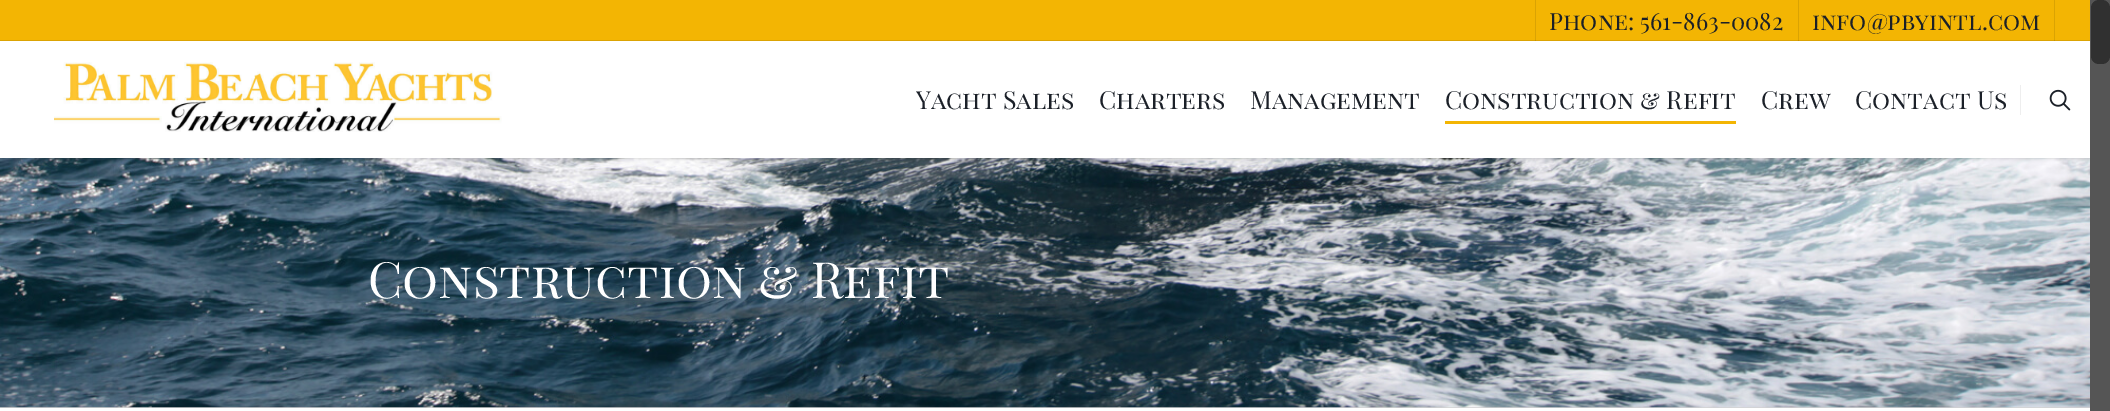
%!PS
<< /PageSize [2110 411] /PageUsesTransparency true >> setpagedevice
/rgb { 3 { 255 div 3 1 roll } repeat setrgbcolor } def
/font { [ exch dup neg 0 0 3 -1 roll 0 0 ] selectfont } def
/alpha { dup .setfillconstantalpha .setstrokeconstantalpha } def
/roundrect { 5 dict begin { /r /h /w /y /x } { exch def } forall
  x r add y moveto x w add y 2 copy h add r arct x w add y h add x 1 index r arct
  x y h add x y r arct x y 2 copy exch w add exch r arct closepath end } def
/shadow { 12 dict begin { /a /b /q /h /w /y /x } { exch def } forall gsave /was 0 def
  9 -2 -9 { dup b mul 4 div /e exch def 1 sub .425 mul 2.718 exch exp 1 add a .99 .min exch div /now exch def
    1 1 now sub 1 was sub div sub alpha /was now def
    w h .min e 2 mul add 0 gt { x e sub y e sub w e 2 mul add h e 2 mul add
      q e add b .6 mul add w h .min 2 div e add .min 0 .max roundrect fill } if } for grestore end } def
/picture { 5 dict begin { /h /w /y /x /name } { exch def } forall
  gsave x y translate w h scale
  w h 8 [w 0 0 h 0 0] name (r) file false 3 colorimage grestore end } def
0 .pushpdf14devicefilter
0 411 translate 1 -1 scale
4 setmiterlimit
209 209 209 rgb
0 0 2110 411 rectfill
(img/3.rgb) 0 158 2090 250 picture
0 0 0 rgb
0 40 2110 118 0 2 0.22 shadow
[
  [0 0 2090 40 243 181 3]
  [0 40 2090 1 219 163 3]
] { aload pop rgb rectfill } forall
0.1 alpha
[
  [1535 0 1 41 0 0 0]
  [2054 0 1 41 0 0 0]
  [1798 0 1 41 0 0 0]
] { aload pop rgb rectfill } forall
1 alpha
[
  [2090 0 20 411 85 85 85]
] { aload pop rgb rectfill } forall
48 48 48 rgb
2091 0 19 64 8 roundrect fill
255 255 255 rgb
0 41 2090 117 rectfill
(img/1.rgb) 54 62 448 70 picture
243 181 3 rgb
1445 121 291 3 rectfill
238 238 238 rgb
2020 85 1 30 rectfill
(img/2.rgb) 2049 89 22 22 picture
255 255 255 rgb
0 408 2090 3 rectfill
/PlayfairDisplaySC-Regular 23.75 font
27 32 40 rgb
1549 30 moveto (Phone: 561-863-0082) show
1812 30 moveto (info@pbyintl.com) show
/PlayfairDisplaySC-Regular 25 font
[
  [(Yacht Sales) 916 109]
  [(Charters) 1099 109]
  [(Management) 1250 109]
  [(Construction & Refit) 1445 109]
  [(Crew) 1761 109]
  [(Contact Us) 1855 109]
] { aload pop moveto show } forall
/PlayfairDisplaySC-Regular 50 font
255 255 255 rgb
368 298 moveto (Construction & Refit) show
.poppdf14devicefilter showpage
